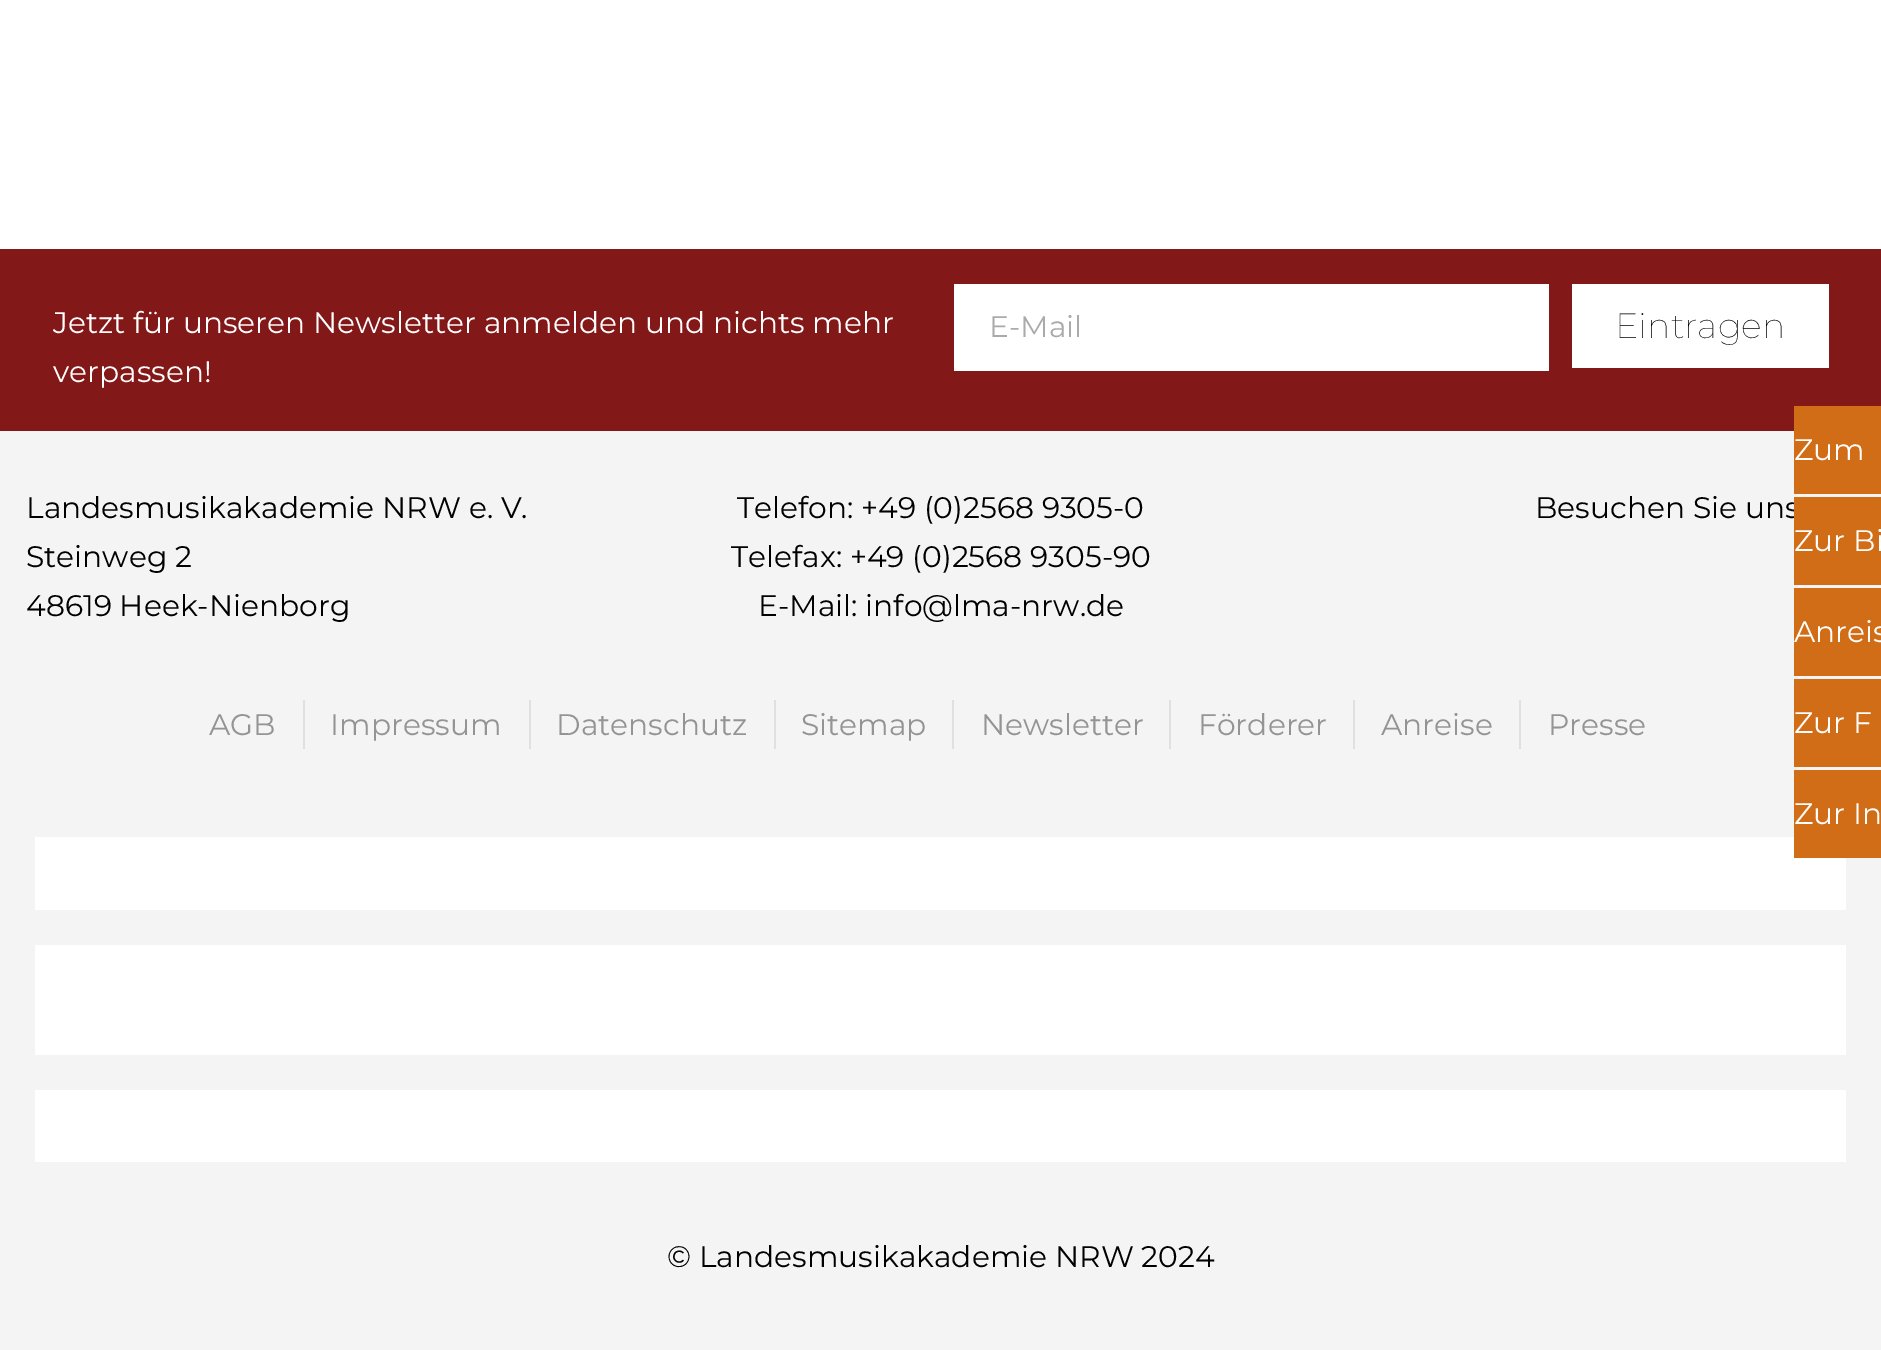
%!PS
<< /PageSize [1881 1350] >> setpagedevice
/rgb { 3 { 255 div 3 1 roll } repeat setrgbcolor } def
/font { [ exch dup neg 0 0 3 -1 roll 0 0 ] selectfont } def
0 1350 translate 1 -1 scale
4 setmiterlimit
255 255 255 rgb
0 0 1881 1350 rectfill
[
  [0 249 1881 182 131 24 25]
  [954 284 595 87 255 255 255]
  [1572 284 257 84 255 255 255]
  [0 431 1881 919 245 244 244]
  [303 700 2 49 225 224 224]
  [529 700 2 49 225 224 224]
  [774 700 2 49 225 224 224]
  [952 700 2 49 225 224 224]
  [1169 700 2 49 225 224 224]
  [1353 700 2 49 225 224 224]
  [1519 700 2 49 225 224 224]
  [35 837 1811 73 255 255 255]
  [35 945 1811 110 255 255 255]
  [35 1090 1811 72 255 255 255]
  [1794 406 87 88 209 109 23]
  [1794 588 87 88 209 109 23]
  [1794 679 87 88 209 109 23]
  [1794 770 87 88 209 109 23]
] { aload pop rgb rectfill } forall
/Montserrat-Regular 29.75 font
255 255 255 rgb
53 333 moveto (Jetzt für unseren Newsletter anmelden und nichts mehr) show
53 382 moveto (verpassen!) show
170 170 170 rgb
989 337 moveto (E-Mail) show
/Montserrat-Thin 35 font
0 0 0 rgb
1615 338 moveto (Eintragen) show
/Montserrat-Regular 29.75 font
[
  [(Landesmusikakademie NRW e. V.) 26 518]
  [(Steinweg 2) 26 567]
  [(48619 Heek-Nienborg) 26 616]
  [(Telefon: +49 \(0\)2568 9305-0) 737 518]
  [(Telefax: +49 \(0\)2568 9305-90) 731 567]
  [(E-Mail: info@lma-nrw.de) 758 616]
  [(Besuchen Sie uns) 1535 518]
] { aload pop moveto show } forall
148 148 148 rgb
[
  [(AGB) 209 735]
  [(Impressum) 330 735]
  [(Datenschutz) 556 735]
  [(Sitemap) 801 735]
  [(Newsletter) 981 735]
  [(Förderer) 1198 735]
  [(Anreise) 1381 735]
  [(Presse) 1548 735]
] { aload pop moveto show } forall
0 0 0 rgb
667 1267 moveto (© Landesmusikakademie NRW 2024) show
255 255 255 rgb
1794 460 moveto (Zum) show
209 109 23 rgb
1794 497 87 88 rectfill
255 255 255 rgb
[
  [(Zur Bi) 1794 551]
  [(Anreis) 1794 642]
  [(Zur F) 1794 733]
  [(Zur In) 1794 824]
] { aload pop moveto show } forall
showpage
